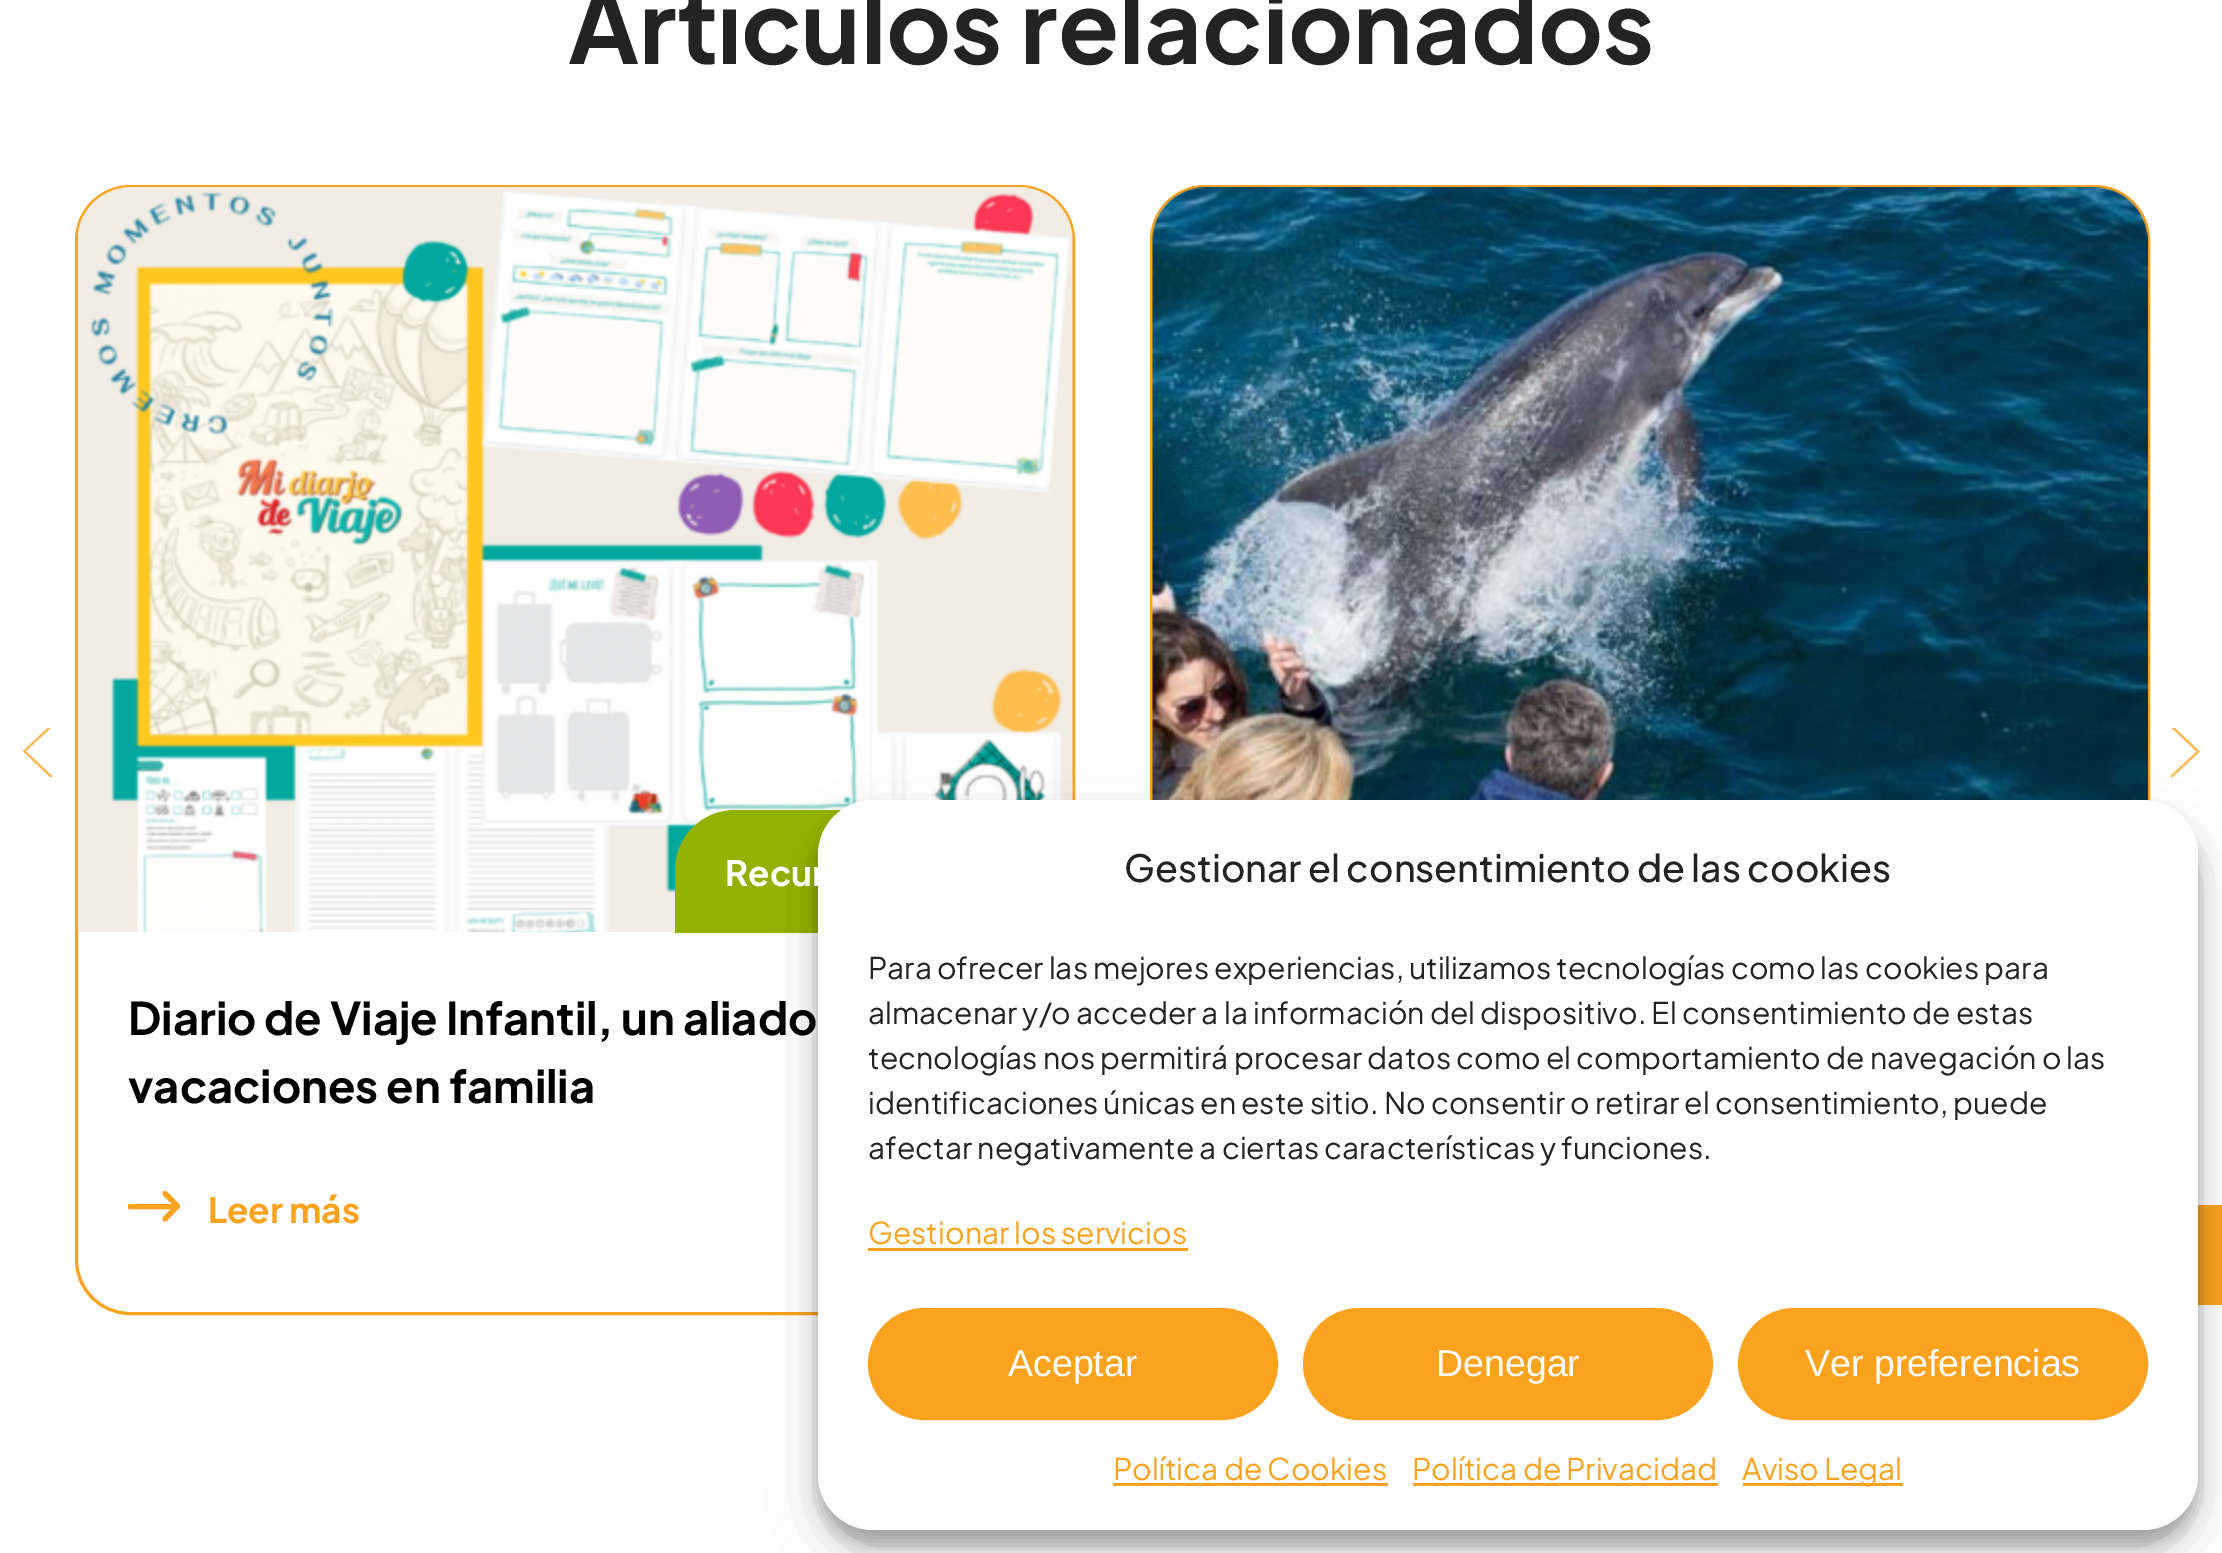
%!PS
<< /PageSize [2222 1553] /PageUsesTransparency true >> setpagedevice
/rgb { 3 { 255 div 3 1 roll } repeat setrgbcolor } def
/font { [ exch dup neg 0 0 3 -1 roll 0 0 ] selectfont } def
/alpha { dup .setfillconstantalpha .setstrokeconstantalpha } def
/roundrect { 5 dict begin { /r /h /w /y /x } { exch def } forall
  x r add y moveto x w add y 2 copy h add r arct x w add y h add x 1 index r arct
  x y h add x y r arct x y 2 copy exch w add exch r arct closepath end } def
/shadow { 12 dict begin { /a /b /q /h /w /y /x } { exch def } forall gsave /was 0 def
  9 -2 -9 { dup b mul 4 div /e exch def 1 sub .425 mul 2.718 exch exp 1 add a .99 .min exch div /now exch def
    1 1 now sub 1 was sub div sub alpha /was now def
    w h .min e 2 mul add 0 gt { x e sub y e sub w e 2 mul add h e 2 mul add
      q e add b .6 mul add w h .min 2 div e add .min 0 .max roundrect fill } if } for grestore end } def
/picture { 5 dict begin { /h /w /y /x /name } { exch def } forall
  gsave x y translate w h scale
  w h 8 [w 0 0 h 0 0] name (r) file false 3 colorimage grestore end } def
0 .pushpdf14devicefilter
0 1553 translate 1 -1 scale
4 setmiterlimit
255 255 255 rgb
0 0 2222 1553 rectfill
(img/1.rgb) 23 728 30 50 picture
(img/2.rgb) 2170 728 30 50 picture
251 162 31 rgb
3 setlinewidth
76.5 186.5 997 1127 53.5 roundrect stroke
(img/3.rgb) 78 187 995 745 picture
147 178 0 rgb
735 810 moveto 1013 810 lineto 1046 810 1073 837 1073 870 curveto 1073 933 lineto 675 933 lineto 675 870 lineto 675 837 702 810 735 810 curveto closepath fill
gsave
128 1190 52 33 rectclip
251 162 31 rgb
5 setlinewidth
1 setlinecap
1 setlinejoin
177.5 1206.5 moveto 130 1206.5 lineto 165 1219 moveto 177.5 1206 lineto 165 1193.5 lineto stroke
grestore
251 162 31 rgb
1151.5 186.5 997 1127 53.5 roundrect stroke
(img/4.rgb) 1152 187 996 614 picture
2198 1205 24 100 rectfill
0 0 0 rgb
818 815 1380 730 55 7.5 0.23 shadow
818 825 1380 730 55 25 0.19 shadow
255 255 255 rgb
818 800 1380 730 55 roundrect fill
251 162 31 rgb
868 1248 320 3 rectfill
869.5 1309.5 407 109 54.5 roundrect gsave fill grestore
stroke
1304.5 1309.5 407 109 54.5 roundrect gsave fill grestore
stroke
1739.5 1309.5 407 109 54.5 roundrect gsave fill grestore
stroke
[
  [1113 1483 275 3 251 162 31]
  [1413 1483 305 3 251 162 31]
  [1743 1483 160 3 251 162 31]
] { aload pop rgb rectfill } forall
/PlusJakartaSans-Bold 100 font
35 35 35 rgb
568 64 moveto (Artículos relacionados) show
/PlusJakartaSans-Bold 35 font
255 255 255 rgb
725 886 moveto (Recur) show
/PlusJakartaSans-Bold 45 font
0 0 0 rgb
128 1035 moveto (Diario de Viaje Infantil, un aliado) show
128 1103 moveto (vacaciones en familia) show
/PlusJakartaSans-Bold 35 font
251 162 31 rgb
208 1223 moveto (Leer más) show
/PlusJakartaSans-Medium 37.5 font
35 35 35 rgb
1124 882 moveto (Gestionar el consentimiento de las cookies) show
/PlusJakartaSans-Regular 30 font
[
  [(Para ofrecer las mejores experiencias, utilizamos tecnologías como las cookies para) 868 979]
  [(almacenar y/o acceder a la información del dispositivo. El consentimiento de estas) 868 1024]
  [(tecnologías nos permitirá procesar datos como el comportamiento de navegación o las) 868 1069]
  [(identificaciones únicas en este sitio. No consentir o retirar el consentimiento, puede) 868 1114]
  [(afectar negativamente a ciertas características y funciones.) 868 1159]
] { aload pop moveto show } forall
251 162 31 rgb
868 1244 moveto (Gestionar los servicios) show
/LiberationSans-Regular 37.5 font
255 255 255 rgb
[
  [(Aceptar) 1008 1376]
  [(Denegar) 1436 1376]
  [(Ver preferencias) 1805 1376]
] { aload pop moveto show } forall
/PlusJakartaSans-Regular 30 font
251 162 31 rgb
[
  [(Política de Cookies) 1113 1480]
  [(Política de Privacidad) 1412 1480]
  [(Aviso Legal) 1742 1480]
] { aload pop moveto show } forall
.poppdf14devicefilter showpage
